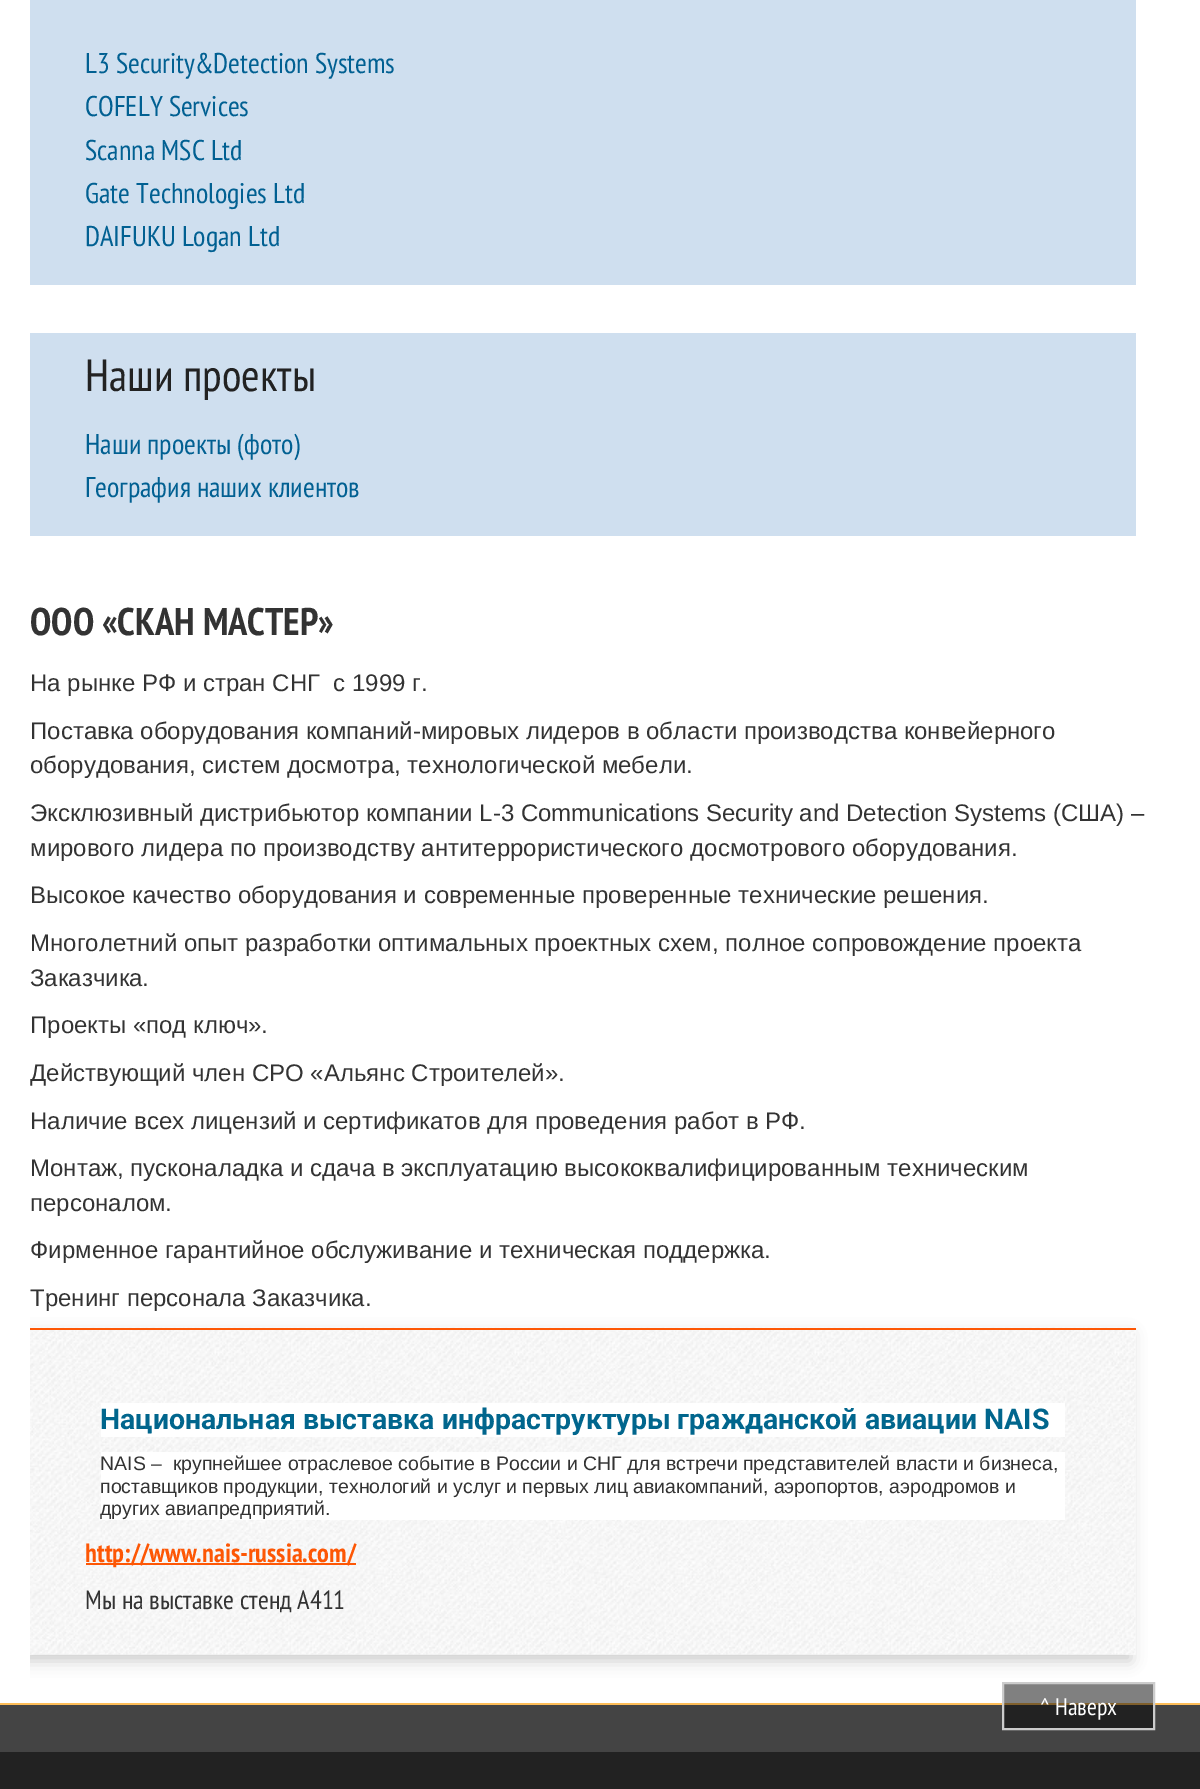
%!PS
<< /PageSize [1200 1789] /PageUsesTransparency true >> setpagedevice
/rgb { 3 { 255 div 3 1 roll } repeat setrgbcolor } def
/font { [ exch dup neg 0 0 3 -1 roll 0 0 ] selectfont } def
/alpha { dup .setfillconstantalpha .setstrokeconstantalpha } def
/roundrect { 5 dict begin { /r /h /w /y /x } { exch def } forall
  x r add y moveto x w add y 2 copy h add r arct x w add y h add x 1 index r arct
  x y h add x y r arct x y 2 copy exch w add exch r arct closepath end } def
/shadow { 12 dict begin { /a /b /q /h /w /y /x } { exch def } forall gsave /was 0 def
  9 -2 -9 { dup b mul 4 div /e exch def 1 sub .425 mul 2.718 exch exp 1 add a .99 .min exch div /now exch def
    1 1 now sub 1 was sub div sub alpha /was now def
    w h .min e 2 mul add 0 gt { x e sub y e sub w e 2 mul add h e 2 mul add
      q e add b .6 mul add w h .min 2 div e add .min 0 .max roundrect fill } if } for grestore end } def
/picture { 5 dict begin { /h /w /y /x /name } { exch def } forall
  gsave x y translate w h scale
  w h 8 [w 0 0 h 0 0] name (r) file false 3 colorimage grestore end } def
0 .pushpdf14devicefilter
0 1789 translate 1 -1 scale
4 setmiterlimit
255 255 255 rgb
0 0 1200 1789 rectfill
[
  [1004 1684 149 19 128 128 128]
  [30 0 1106 285 207 223 239]
  [30 333 1106 203 207 223 239]
] { aload pop rgb rectfill } forall
gsave
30 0 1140 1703 rectclip
204 204 204 rgb
26 1334 1105 327 0 7.5 1 shadow
grestore
(img/1.rgb) 30 1327 1106 328 picture
[
  [30 1328 1106 2 253 87 5]
  [101 1403 964 34 255 255 255]
  [101 1452 964 68 255 255 255]
  [86 1563 270 2 253 87 5]
  [0 1705 1200 47 68 68 68]
  [1004 1705 149 23 34 34 34]
  [0 1703 1200 2 253 189 88]
  [1002 1703 153 2 127 95 44]
] { aload pop rgb rectfill } forall
204 204 204 rgb
2 setlinewidth
1003 1683 151 46 rectstroke
34 34 34 rgb
0 1752 1200 37 rectfill
/PTSansNarrow-Regular 28.5 font
1 96 146 rgb
[
  [(L3 Security&Detection Systems) 85 73]
  [(COFELY Services) 85 116]
  [(Scanna MSC Ltd) 85 160]
  [(Gate Technologies Ltd) 85 203]
  [(DAIFUKU Logan Ltd) 85 246]
] { aload pop moveto show } forall
/PTSansNarrow-Regular 45 font
34 34 34 rgb
85 391 moveto (Наши проекты) show
/PTSansNarrow-Regular 28.5 font
1 96 146 rgb
85 454 moveto (Наши проекты \(фото\)) show
85 497 moveto (География наших клиентов) show
/PTSansNarrow-Bold 38.5 font
51 51 51 rgb
30 635 moveto (ООО «СКАН МАСТЕР») show
/LiberationSans-Regular 24 font
[
  [(На рынке РФ и стран СНГ  с 1999 г.) 30 691]
  [(Поставка оборудования компаний-мировых лидеров в области производства конвейерного) 30 739]
  [(оборудования, систем досмотра, технологической мебели.) 30 773]
  [(Эксклюзивный дистрибьютор компании L-3 Communications Security and Detection Systems \(США\) –) 30 821]
  [(мирового лидера по производству антитеррористического досмотрового оборудования.) 30 856]
  [(Высокое качество оборудования и современные проверенные технические решения.) 30 903]
  [(Многолетний опыт разработки оптимальных проектных схем, полное сопровождение проекта) 30 951]
  [(Заказчика.) 30 986]
  [(Проекты «под ключ».) 30 1033]
  [(Действующий член СРО «Альянс Строителей».) 30 1081]
  [(Наличие всех лицензий и сертификатов для проведения работ в РФ.) 30 1129]
  [(Монтаж, пусконаладка и сдача в эксплуатацию высококвалифицированным техническим) 30 1176]
  [(персоналом.) 30 1211]
  [(Фирменное гарантийное обслуживание и техническая поддержка.) 30 1258]
  [(Тренинг персонала Заказчика.) 30 1306]
] { aload pop moveto show } forall
/Roboto-Bold 28.5 font
1 102 141 rgb
100 1429 moveto (Национальная выставка инфраструктуры гражданской авиации NAIS) show
/LiberationSans-Regular 19.5 font
51 51 51 rgb
[
  [(NAIS –  крупнейшее отраслевое событие в России и СНГ для встречи представителей власти и бизнеса,) 100 1470]
  [(поставщиков продукции, технологий и услуг и первых лиц авиакомпаний, аэропортов, аэродромов и) 100 1493]
  [(других авиапредприятий.) 100 1515]
] { aload pop moveto show } forall
/PTSansNarrow-Bold 26.4 font
253 87 5 rgb
85 1562 moveto (http://www.nais-russia.com/) show
/PTSansNarrow-Regular 26.4 font
51 51 51 rgb
85 1609 moveto (Мы на выставке стенд А411) show
/PTSansNarrow-Regular 24 font
255 255 255 rgb
1040 1715 moveto (^ Наверх) show
.poppdf14devicefilter showpage
